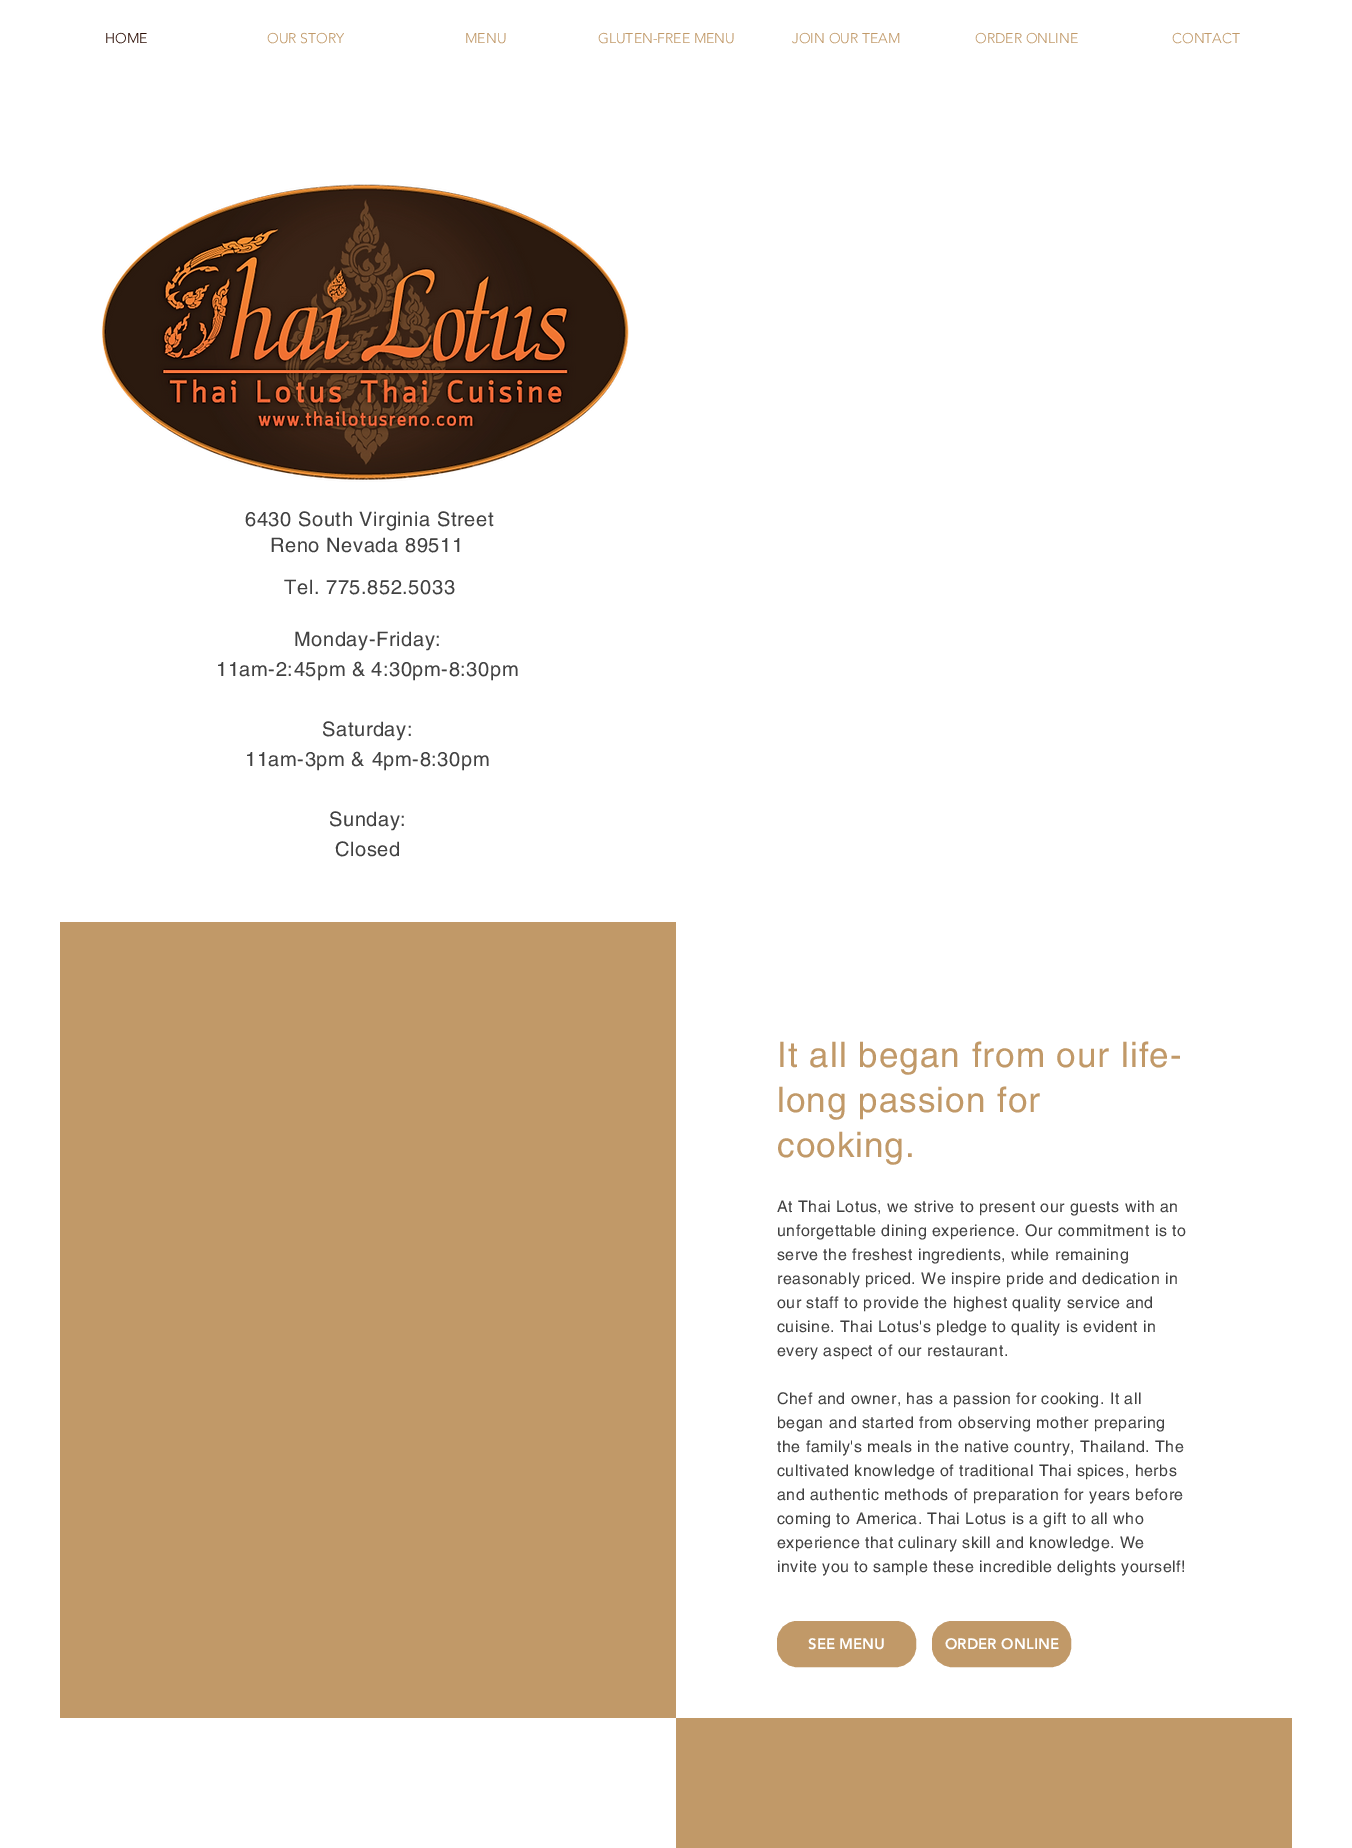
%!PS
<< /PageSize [1352 1848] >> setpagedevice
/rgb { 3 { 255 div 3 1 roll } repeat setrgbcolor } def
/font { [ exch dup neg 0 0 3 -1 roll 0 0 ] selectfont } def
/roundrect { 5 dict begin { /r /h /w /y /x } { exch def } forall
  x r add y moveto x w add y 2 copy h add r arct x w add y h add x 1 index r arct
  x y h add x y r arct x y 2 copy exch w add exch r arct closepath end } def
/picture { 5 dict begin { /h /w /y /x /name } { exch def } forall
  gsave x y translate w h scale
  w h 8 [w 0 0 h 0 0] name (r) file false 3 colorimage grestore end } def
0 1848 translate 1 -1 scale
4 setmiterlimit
255 255 255 rgb
0 0 1352 1848 rectfill
(img/1.rgb) 102 184 527 298 picture
193 153 104 rgb
60 922 616 796 rectfill
778 1622 137 44 19 roundrect gsave fill grestore
2 setlinewidth
stroke
933 1622 137 44 19 roundrect gsave fill grestore
stroke
676 1718 616 130 rectfill
/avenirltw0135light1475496-Light 14 font
43 13 4 rgb
105 43 moveto (HOME) show
193 153 104 rgb
[
  [(OUR STORY) 267 43]
  [(MENU) 465 43]
  [(GLUTEN-FREE MENU) 598 43]
  [(JOIN OUR TEAM) 792 43]
  [(ORDER ONLINE) 975 43]
  [(CONTACT) 1172 43]
] { aload pop moveto show } forall
/helvetica-Regular 20 font
65 65 65 rgb
245 526 moveto 0.6 0 (6430 South Virginia Street) ashow
270 552 moveto 0.6 0 (Reno Nevada 89511) ashow
284 594 moveto 0.6 0 (Tel. 775.852.5033) ashow
294 646 moveto 0.6 0 (Monday-Friday:) ashow
216 676 moveto 0.6 0 (11am-2:45pm) ashow
352 676 moveto (&) show
371 676 moveto 0.6 0 (4:30pm-8:30pm) ashow
322 736 moveto 0.6 0 (Saturday:) ashow
245 766 moveto 0.6 0 (11am-3pm & 4pm-8:30pm) ashow
329 826 moveto 0.6 0 (Sunday:) ashow
335 856 moveto 0.6 0 (Closed) ashow
/helvetica-Regular 35 font
193 153 104 rgb
777 1067 moveto 1.05 0 (It all began from our life-) ashow
777 1112 moveto 1.05 0 (long passion for) ashow
777 1157 moveto 1.05 0 (cooking.) ashow
/helvetica-Regular 16 font
65 65 65 rgb
777 1212 moveto 0.48 0 (At Thai Lotus, we strive to present our guests with an) ashow
777 1236 moveto 0.48 0 (unforgettable dining experience. Our commitment is to) ashow
777 1260 moveto 0.48 0 (serve the freshest ingredients, while remaining) ashow
777 1284 moveto 0.48 0 (reasonably priced. We inspire pride and dedication in) ashow
777 1308 moveto 0.48 0 (our staff to provide the highest quality service and) ashow
777 1332 moveto 0.48 0 (cuisine. Thai Lotus's pledge to quality is evident in) ashow
777 1356 moveto 0.48 0 (every aspect of our restaurant.) ashow
777 1404 moveto 0.48 0 (Chef and owner, has a passion for cooking. It all) ashow
777 1428 moveto 0.48 0 (began and started from observing mother preparing) ashow
777 1452 moveto 0.48 0 (the family's meals in the native country, Thailand. The) ashow
777 1476 moveto 0.48 0 (cultivated knowledge of traditional Thai spices, herbs) ashow
777 1500 moveto 0.48 0 (and authentic methods of preparation for years before) ashow
777 1524 moveto 0.48 0 (coming to America. Thai Lotus is a gift to all who) ashow
777 1548 moveto 0.48 0 (experience that culinary skill and knowledge. We) ashow
777 1572 moveto 0.48 0 (invite you to sample these incredible delights yourself!) ashow
/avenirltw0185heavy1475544-Black 15 font
255 255 255 rgb
808 1649 moveto (SEE MENU) show
945 1649 moveto (ORDER ONLINE) show
showpage
